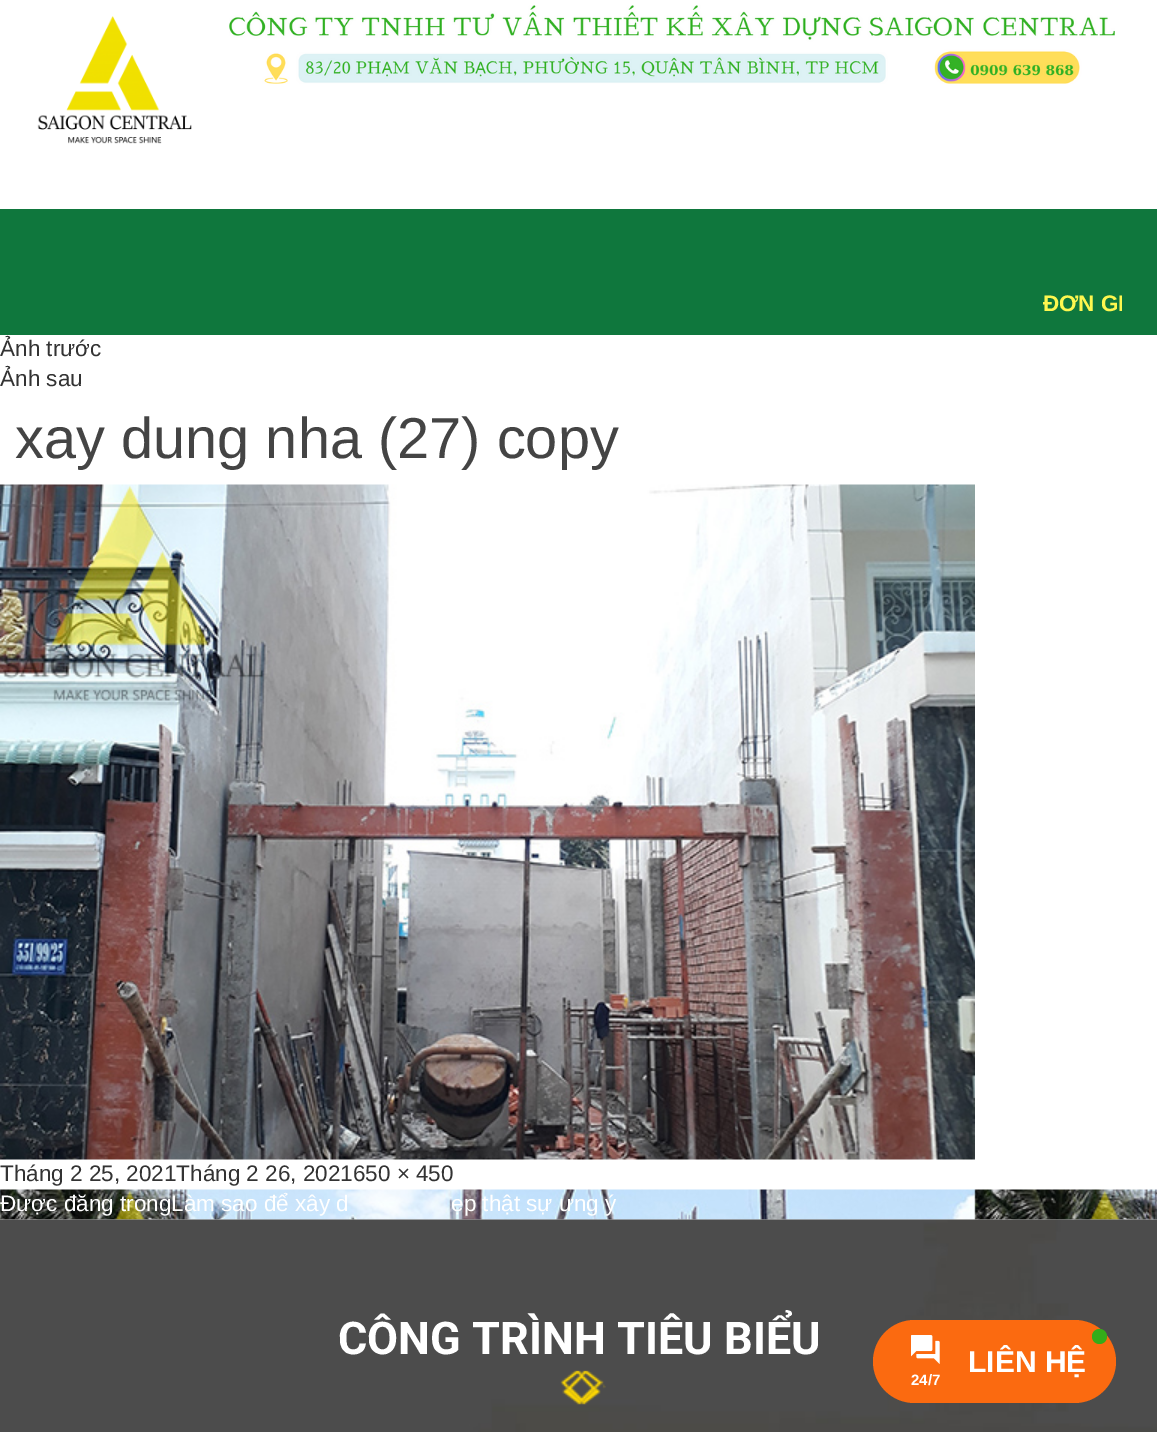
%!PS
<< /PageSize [1157 1432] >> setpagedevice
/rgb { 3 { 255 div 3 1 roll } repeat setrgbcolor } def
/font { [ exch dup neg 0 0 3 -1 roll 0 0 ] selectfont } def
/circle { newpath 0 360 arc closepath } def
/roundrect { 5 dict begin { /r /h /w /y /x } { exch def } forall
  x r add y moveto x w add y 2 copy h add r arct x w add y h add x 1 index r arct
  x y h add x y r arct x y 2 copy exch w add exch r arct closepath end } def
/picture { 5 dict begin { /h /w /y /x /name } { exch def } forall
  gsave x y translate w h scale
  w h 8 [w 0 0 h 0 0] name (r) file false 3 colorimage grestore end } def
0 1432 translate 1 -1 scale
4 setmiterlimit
255 255 255 rgb
0 0 1157 1432 rectfill
(img/1.rgb) 37 16 155 128 picture
(img/2.rgb) 229 5 886 79 picture
15 119 61 rgb
0 209 1157 126 rectfill
(img/3.rgb) 0 484 975 676 picture
(img/4.rgb) 0 1189 1157 31 picture
(img/5.rgb) 0 1219 1157 213 picture
(img/6.rgb) 560 1370 46 35 picture
251 106 16 rgb
873 1320 243 83 41.5 roundrect fill
53 172 25 rgb
1099.5 1336.5 7.5 circle fill
(img/7.rgb) 911 1335 29 29 picture
gsave
36 290 1086 30 rectclip
/LiberationSans-Bold 22.5 font
253 247 79 rgb
1043 311 moveto (ĐƠN GI) show
grestore
/LiberationSans-Regular 22.5 font
51 51 51 rgb
0 356 moveto (Ảnh trước) show
0 386 moveto (Ảnh sau) show
/LiberationSans-Regular 57.75 font
68 68 68 rgb
15 458 moveto (xay dung nha \(27\) copy) show
/LiberationSans-Regular 22.5 font
51 51 51 rgb
0 1181 moveto (Tháng 2 25, 2021Tháng 2 26, 2021650 × 450) show
255 255 255 rgb
0 1211 moveto (Được đăng trongLàm sao để xây d) show
451 1211 moveto (ẹp thật sự ưng ý) show
/Roboto-Bold 45 font
338 1354 moveto (CÔNG TRÌNH TIÊU BIỂU) show
/LiberationSans-Bold 30 font
968 1372 moveto (LIÊN HỆ) show
/LiberationSans-Bold 15 font
911 1385 moveto (24/7) show
showpage
